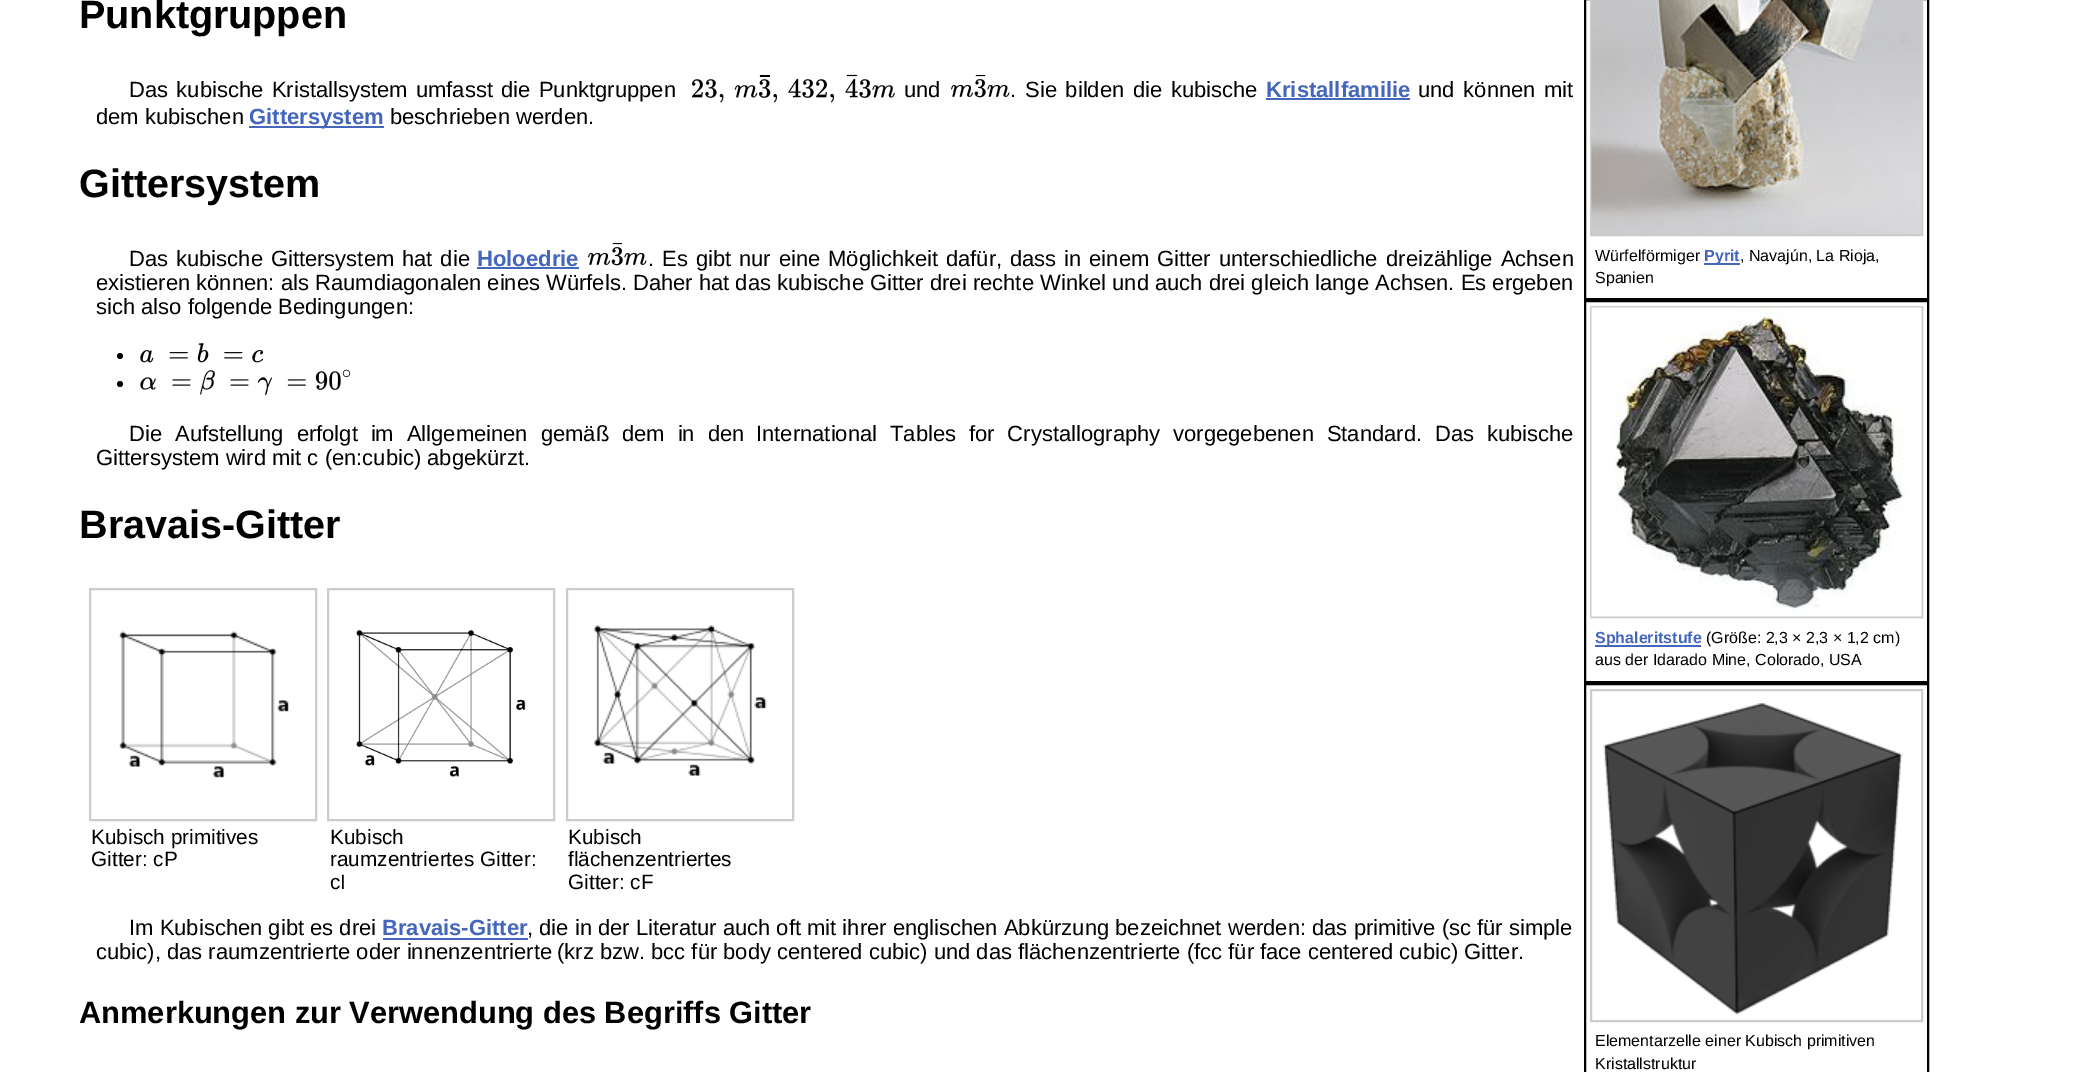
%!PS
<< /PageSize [2075 1072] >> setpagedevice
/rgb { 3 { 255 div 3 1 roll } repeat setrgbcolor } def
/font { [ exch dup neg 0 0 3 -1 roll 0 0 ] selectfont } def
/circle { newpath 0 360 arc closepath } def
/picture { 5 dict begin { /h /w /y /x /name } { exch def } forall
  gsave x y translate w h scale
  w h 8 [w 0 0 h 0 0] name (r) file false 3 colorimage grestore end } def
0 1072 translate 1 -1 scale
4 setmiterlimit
255 255 255 rgb
0 0 2075 1072 rectfill
(img/1.rgb) 692 74 203 29 picture
(img/2.rgb) 951 75 59 23 picture
[
  [1266 98 144 2 68 102 187]
  [249 126 135 2 68 102 187]
  [477 267 102 2 68 102 187]
] { aload pop rgb rectfill } forall
(img/2.rgb) 588 243 59 23 picture
0 0 0 rgb
2 setlinewidth
1585 -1 343 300 rectstroke
204 204 204 rgb
1591 -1 331 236 rectstroke
(img/3.rgb) 1591 0 331 234 picture
68 102 187 rgb
1704 263 36 2 rectfill
0 0 0 rgb
120 356 3 circle fill
(img/4.rgb) 140 343 124 20 picture
120 384 3 circle fill
(img/5.rgb) 140 369 211 27 picture
1585 301 343 381 rectstroke
204 204 204 rgb
1591 307 331 310 rectstroke
(img/6.rgb) 1591 307 331 310 picture
68 102 187 rgb
1595 645 106 2 rectfill
204 204 204 rgb
90 589 226 231 rectstroke
(img/7.rgb) 119 631 171 147 picture
328 589 226 231 rectstroke
(img/8.rgb) 356 629 170 148 picture
567 589 226 231 rectstroke
(img/9.rgb) 593 625 174 151 picture
68 102 187 rgb
383 938 145 2 rectfill
0 0 0 rgb
1585 684 343 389 rectstroke
204 204 204 rgb
1591 690 331 331 rectstroke
(img/10.rgb) 1603 702 300 313 picture
/LiberationSans-Bold 39.5 font
0 0 0 rgb
79 28 moveto (Punktgruppen) show
/LiberationSans-Regular 22 font
129 97 moveto 2.25 0 32 (Das kubische Kristallsystem umfasst die Punktgruppen) widthshow
904 97 moveto (und) show
1010 97 moveto (.) show
1025 97 moveto 2.5 0 32 (Sie bilden die kubische) widthshow
/LiberationSans-Bold 22 font
68 102 187 rgb
1266 97 moveto (Kristallfamilie) show
/LiberationSans-Regular 22 font
0 0 0 rgb
1418 97 moveto 2.5 0 32 (und können mit) widthshow
96 124 moveto (dem kubischen) show
/LiberationSans-Bold 22 font
68 102 187 rgb
249 124 moveto (Gittersystem) show
/LiberationSans-Regular 22 font
0 0 0 rgb
390 124 moveto (beschrieben werden.) show
/LiberationSans-Bold 39.5 font
79 197 moveto (Gittersystem) show
/LiberationSans-Regular 22 font
129 266 moveto 1.75 0 32 (Das kubische Gittersystem hat die) widthshow
/LiberationSans-Bold 22 font
68 102 187 rgb
477 266 moveto (Holoedrie) show
/LiberationSans-Regular 22 font
0 0 0 rgb
648 266 moveto (.) show
662 266 moveto 1.75 0 32 (Es gibt nur eine Möglichkeit dafür, dass in einem Gitter unterschiedliche) widthshow
1386 266 moveto 2 0 32 (dreizählige Achsen) widthshow
96 290 moveto (existieren können: als Raumdiagonalen eines Würfels. Daher hat das kubische Gitter drei rechte Winkel und auch drei gleich lange Achsen. Es ergeben) show
96 314 moveto (sich also folgende Bedingungen:) show
/LiberationSans-Regular 16 font
1595 261 moveto (Würfelförmiger) show
/LiberationSans-Bold 16 font
68 102 187 rgb
1704 261 moveto (Pyrit) show
/LiberationSans-Regular 16 font
0 0 0 rgb
1740 261 moveto (, Navajún, La Rioja,) show
1595 283 moveto (Spanien) show
/LiberationSans-Regular 22 font
129 441 moveto 6.75 0 32 (Die Aufstellung erfolgt im Allgemeinen gemäß dem in den) widthshow
756 441 moveto (International) show
890 441 moveto 6.75 0 32 (Tables for Crystallography vorgegebenen Standard. Das kubische) widthshow
96 465 moveto (Gittersystem wird mit c \(en:cubic\) abgekürzt.) show
/LiberationSans-Bold 39.5 font
79 538 moveto (Bravais-Gitter) show
/LiberationSans-Bold 16 font
68 102 187 rgb
1595 643 moveto (Sphaleritstufe) show
/LiberationSans-Regular 16 font
0 0 0 rgb
1706 643 moveto (\(Größe: 2,3 × 2,3 × 1,2 cm\)) show
1595 665 moveto (aus der Idarado Mine, Colorado, USA) show
/LiberationSans-Regular 20.75 font
[
  [(Kubisch primitives) 91 844]
  [(Gitter: cP) 91 866]
  [(Kubisch) 330 844]
  [(raumzentriertes Gitter:) 330 866]
  [(cI) 330 889]
  [(Kubisch) 568 844]
  [(flächenzentriertes) 568 866]
  [(Gitter: cF) 568 889]
] { aload pop moveto show } forall
/LiberationSans-Regular 22 font
129 935 moveto (Im Kubischen gibt es drei) show
/LiberationSans-Bold 22 font
68 102 187 rgb
382 935 moveto (Bravais-Gitter) show
/LiberationSans-Regular 22 font
0 0 0 rgb
[
  [(, die in der Literatur auch oft mit ihrer englischen Abkürzung bezeichnet werden: das primitive \(sc für simple) 527 935]
  [(cubic\), das raumzentrierte oder innenzentrierte) 96 959]
  [(\(krz bzw. bcc für body centered cubic\) und das flächenzentrierte \(fcc für face centered cubic\) Gitter.) 557 959]
] { aload pop moveto show } forall
/LiberationSans-Bold 30.8 font
79 1023 moveto (Anmerkungen zur Verwendung des Begriffs Gitter) show
/LiberationSans-Regular 16 font
1595 1046 moveto (Elementarzelle einer Kubisch primitiven) show
1595 1069 moveto (Kristallstruktur) show
showpage
